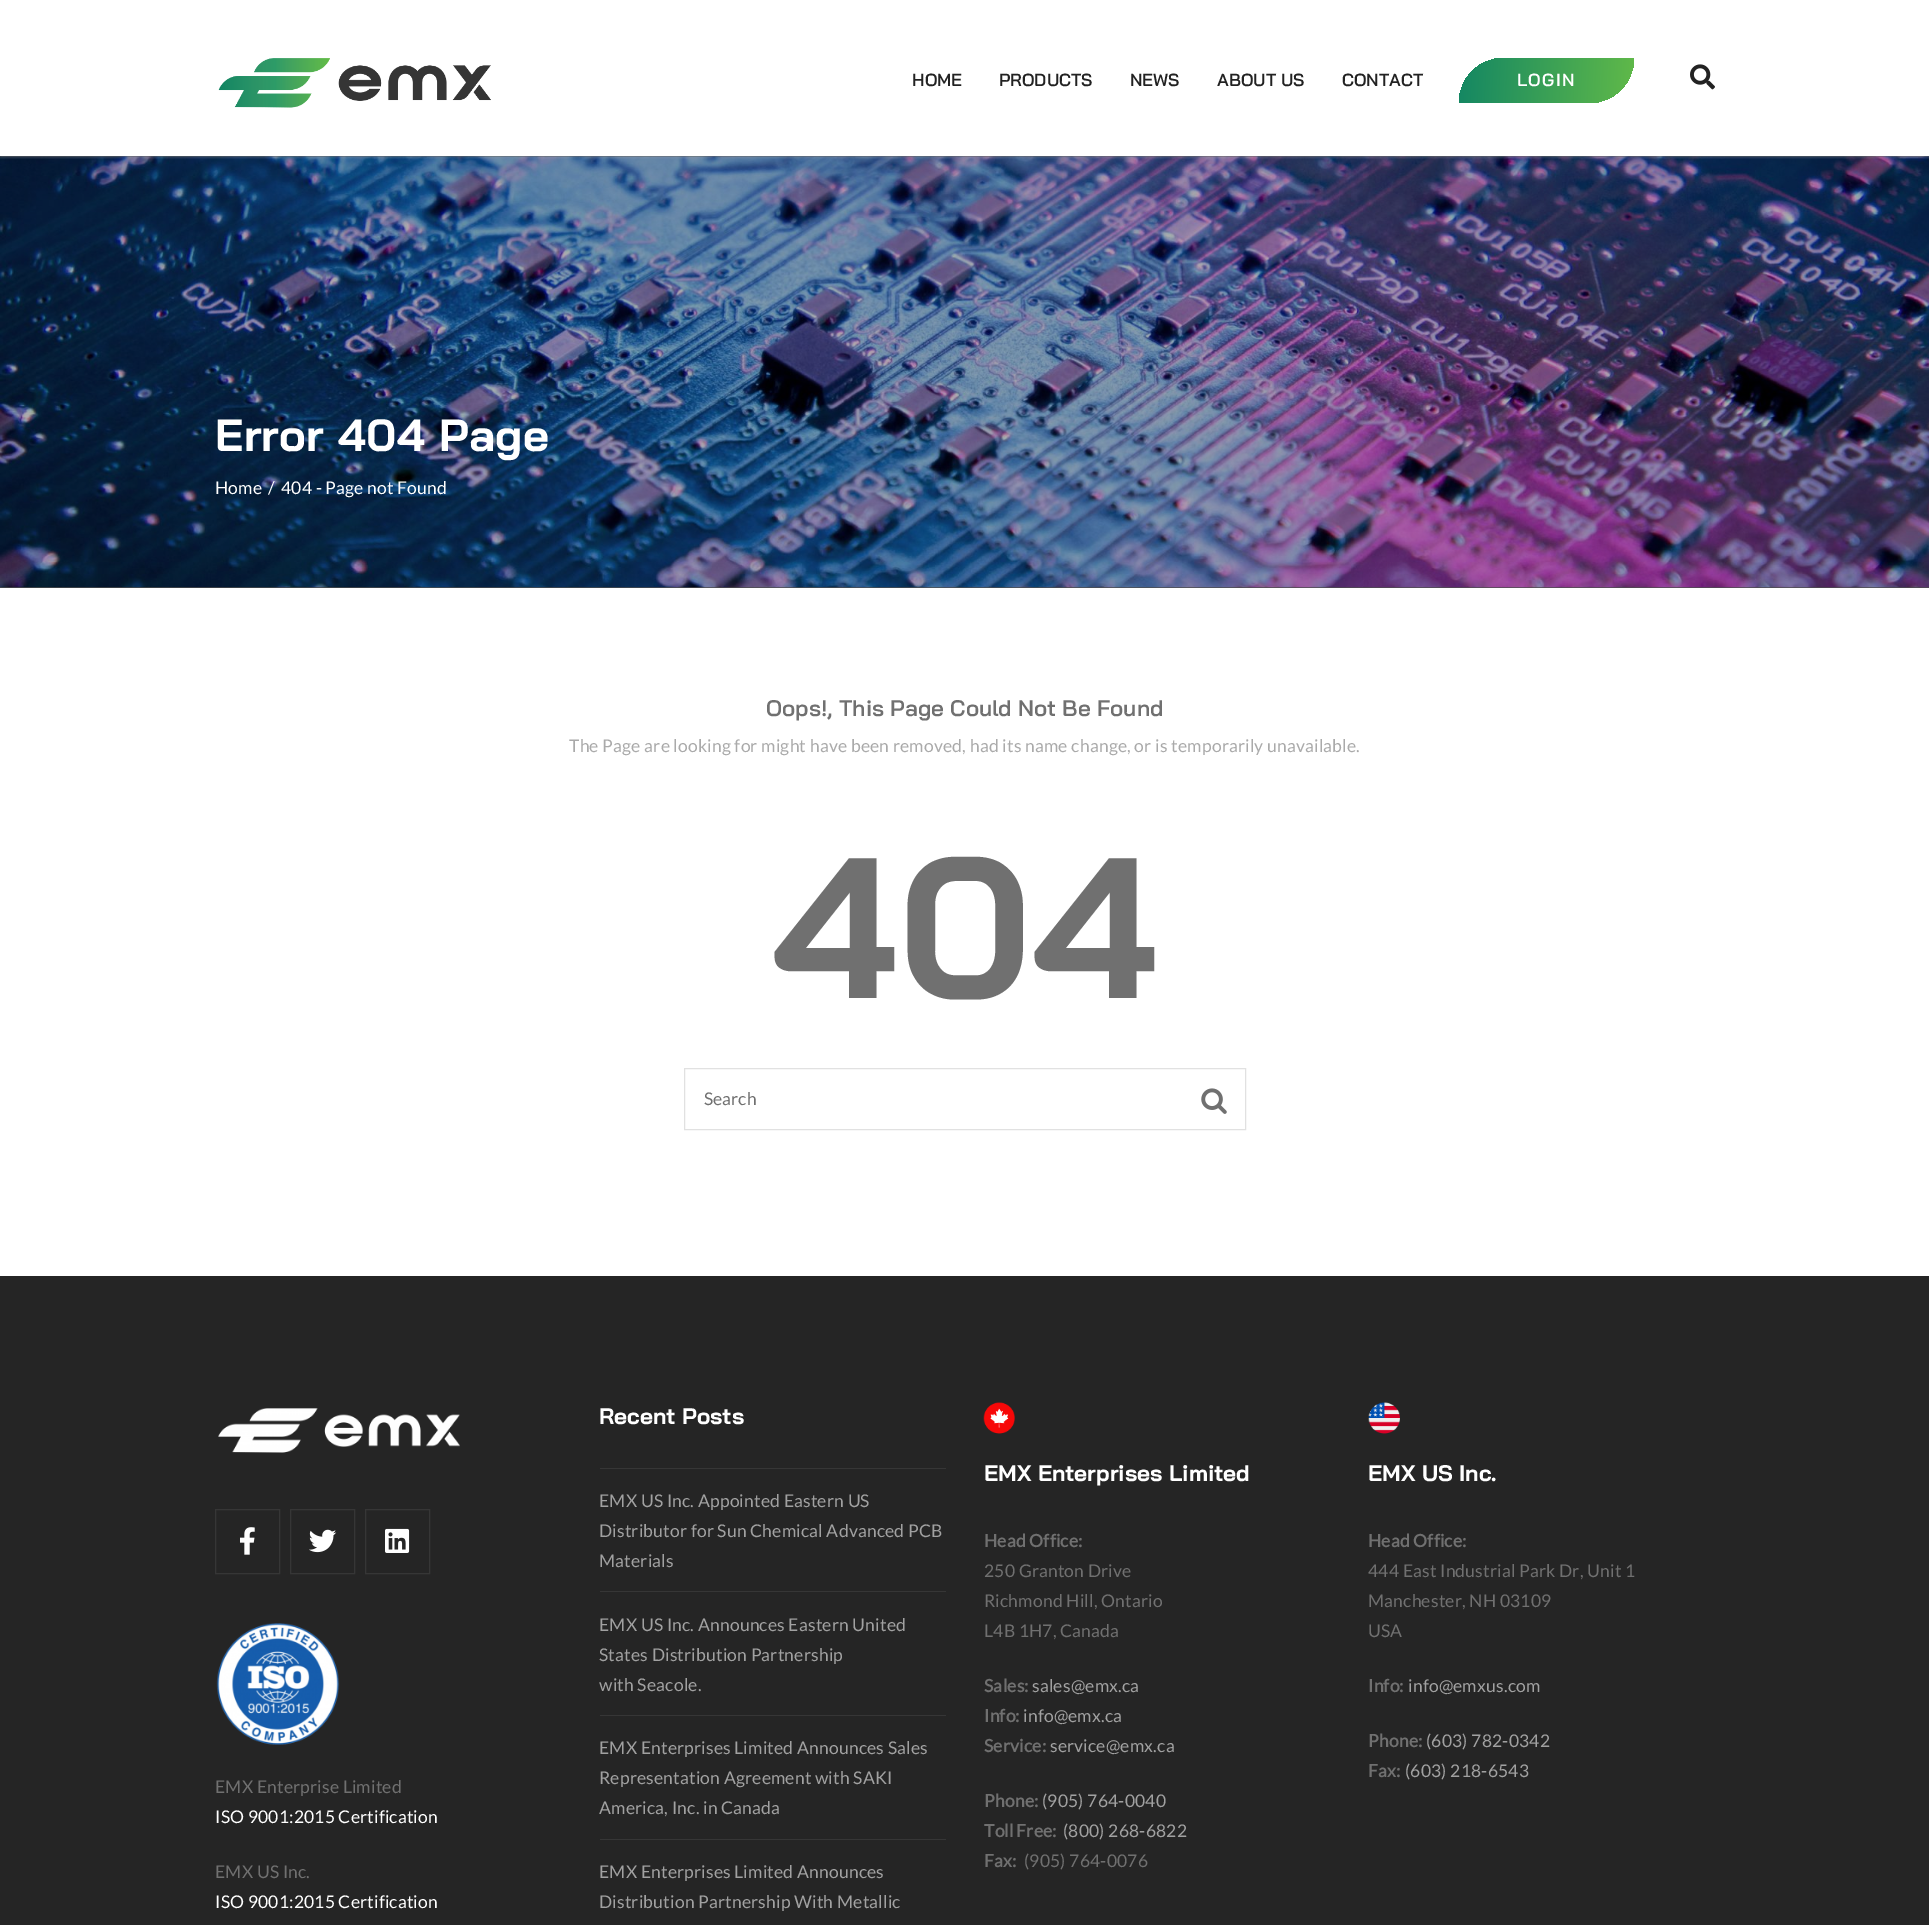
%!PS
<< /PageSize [1929 1925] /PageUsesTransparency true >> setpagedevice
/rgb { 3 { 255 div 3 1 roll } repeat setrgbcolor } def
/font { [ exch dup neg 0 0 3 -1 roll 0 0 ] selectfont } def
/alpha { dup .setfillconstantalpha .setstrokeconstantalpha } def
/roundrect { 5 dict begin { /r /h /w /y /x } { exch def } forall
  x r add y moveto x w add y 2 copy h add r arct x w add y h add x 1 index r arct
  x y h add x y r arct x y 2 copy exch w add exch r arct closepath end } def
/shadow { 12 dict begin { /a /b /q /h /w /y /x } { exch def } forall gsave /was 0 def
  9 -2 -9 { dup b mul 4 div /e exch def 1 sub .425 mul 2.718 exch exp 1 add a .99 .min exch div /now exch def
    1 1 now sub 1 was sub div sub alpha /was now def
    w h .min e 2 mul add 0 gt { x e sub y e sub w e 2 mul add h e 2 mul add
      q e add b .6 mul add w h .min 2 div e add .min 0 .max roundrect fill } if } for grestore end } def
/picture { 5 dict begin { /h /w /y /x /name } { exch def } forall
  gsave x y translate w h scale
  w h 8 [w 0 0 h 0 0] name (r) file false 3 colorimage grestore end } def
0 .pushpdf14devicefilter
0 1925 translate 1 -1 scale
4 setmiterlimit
255 255 255 rgb
0 0 1929 1925 rectfill
76 76 76 rgb
0 156 1929 432 rectfill
(img/3.rgb) 0 156 1929 432 picture
gsave
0 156 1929 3 rectclip
161 161 161 rgb
0 1 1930 157 0 1 0.25 shadow
grestore
(img/1.rgb) 218 58 273 50 picture
gsave 1504 58 moveto 1634 58 lineto 1634 83 1614 103 1589 103 curveto 1459 103 lineto 1459 78 1479 58 1504 58 curveto closepath clip newpath
<< /ShadingType 2 /ColorSpace /DeviceRGB /Coords [1458 75 1635 85] /Extend [true true] /Function << /FunctionType 2 /Domain [0 1] /C0 [0.078 0.529 0.388] /C1 [0.376 0.725 0.286] /N 1 >> >> shfill grestore
(img/2.rgb) 1690 64 25 26 picture
225 225 225 rgb
684.5 1068.5 561 61 rectstroke
(img/4.rgb) 1201 1088 26 26 picture
[
  [0 1276 1929 649 37 37 37]
  [600 1468 346 1 54 54 54]
  [600 1591 346 1 54 54 54]
  [600 1715 346 1 54 54 54]
  [600 1839 346 1 54 54 54]
] { aload pop rgb rectfill } forall
(img/5.rgb) 983 1402 32 32 picture
(img/6.rgb) 1368 1402 32 32 picture
(img/7.rgb) 218 1408 242 45 picture
215.5 1509.5 64 64 rectstroke
(img/8.rgb) 240 1527 15 28 picture
290.5 1509.5 64 64 rectstroke
(img/9.rgb) 309 1529 28 24 picture
365.5 1509.5 64 64 rectstroke
(img/10.rgb) 385 1528 25 25 picture
(img/11.rgb) 216 1623 124 122 picture
/BaiJamjuree-SemiBold 17.5 font
34 34 34 rgb
[
  [(HOME) 912 86]
  [(PRODUCTS) 999 86]
  [(NEWS) 1130 86]
  [(ABOUT US) 1217 86]
  [(CONTACT) 1342 86]
] { aload pop moveto show } forall
255 255 255 rgb
1517 86 moveto 1.25 0 (LOGIN) ashow
/BaiJamjuree-Bold 45 font
215 451 moveto 0.5 0 (Error 404 Page) ashow
/Lato-Regular 17.5 font
215 494 moveto 0.18 0 (Home) ashow
268 494 moveto 0.18 0 (/) ashow
281 494 moveto 0.18 0 (404 - Page not Found) ashow
/BaiJamjuree-SemiBold 22.5 font
112 112 112 rgb
766 716 moveto (Oops!, This Page Could Not Be Found) show
/Lato-Regular 17.5 font
170 170 170 rgb
569 752 moveto 0.18 0 (The Page are looking for might have been removed, had its name change, or is temporarily unavailable.) ashow
/BaiJamjuree-Bold 200 font
112 112 112 rgb
773 998 moveto 0.5 0 (404) ashow
/Lato-Regular 17.5 font
704 1105 moveto (Search) show
/BaiJamjuree-Bold 22.5 font
255 255 255 rgb
599 1424 moveto (Recent Posts) show
/Lato-Regular 17.5 font
161 161 161 rgb
599 1507 moveto 0.18 0 (EMX US Inc. Appointed Eastern US) ashow
599 1537 moveto 0.18 0 (Distributor for Sun Chemical Advanced PCB) ashow
599 1567 moveto 0.18 0 (Materials) ashow
599 1631 moveto 0.18 0 (EMX US Inc. Announces Eastern United) ashow
599 1661 moveto 0.18 0 (States Distribution Partnership) ashow
599 1691 moveto 0.18 0 (with Seacole.) ashow
599 1754 moveto 0.18 0 (EMX Enterprises Limited Announces Sales) ashow
599 1784 moveto 0.18 0 (Representation Agreement with SAKI) ashow
599 1814 moveto 0.18 0 (America, Inc. in Canada) ashow
599 1878 moveto 0.18 0 (EMX Enterprises Limited Announces) ashow
599 1908 moveto 0.18 0 (Distribution Partnership With Metallic) ashow
/BaiJamjuree-Bold 22.5 font
255 255 255 rgb
984 1481 moveto (EMX Enterprises Limited) show
/Lato-Bold 17.5 font
112 112 112 rgb
984 1547 moveto 0.18 0 (Head Office:) ashow
/Lato-Regular 17.5 font
984 1577 moveto 0.18 0 (250 Granton Drive) ashow
984 1607 moveto 0.18 0 (Richmond Hill, Ontario) ashow
984 1637 moveto 0.18 0 (L4B 1H7, Canada) ashow
/Lato-Bold 17.5 font
984 1692 moveto 0.18 0 (Sales:) ashow
/Lato-Regular 17.5 font
161 161 161 rgb
1032 1692 moveto 0.18 0 (sales@emx.ca) ashow
/Lato-Bold 17.5 font
112 112 112 rgb
984 1722 moveto 0.18 0 (Info:) ashow
/Lato-Regular 17.5 font
161 161 161 rgb
1023 1722 moveto 0.18 0 (info@emx.ca) ashow
/Lato-Bold 17.5 font
112 112 112 rgb
984 1752 moveto 0.18 0 (Service:) ashow
/Lato-Regular 17.5 font
161 161 161 rgb
1050 1752 moveto 0.18 0 (service@emx.ca) ashow
/Lato-Bold 17.5 font
112 112 112 rgb
984 1807 moveto 0.18 0 (Phone:) ashow
/Lato-Regular 17.5 font
161 161 161 rgb
1042 1807 moveto 0.18 0 (\(905\) 764-0040) ashow
/Lato-Bold 17.5 font
112 112 112 rgb
984 1837 moveto -1 0 32 0.18 0 (Toll Free:) awidthshow
/Lato-Regular 17.5 font
161 161 161 rgb
1063 1837 moveto 0.18 0 (\(800\) 268-6822) ashow
/Lato-Bold 17.5 font
112 112 112 rgb
984 1867 moveto 0.18 0 (Fax:) ashow
/Lato-Regular 17.5 font
1024 1867 moveto 0.18 0 (\(905\) 764-0076) ashow
/BaiJamjuree-Bold 22.5 font
255 255 255 rgb
1368 1481 moveto (EMX US Inc.) show
/Lato-Bold 17.5 font
112 112 112 rgb
1368 1547 moveto 0.18 0 (Head Office:) ashow
/Lato-Regular 17.5 font
1368 1577 moveto 0.18 0 (444 East Industrial Park Dr, Unit 1) ashow
1368 1607 moveto 0.18 0 (Manchester, NH 03109) ashow
1368 1637 moveto 0.18 0 (USA) ashow
/Lato-Bold 17.5 font
1368 1692 moveto 0.18 0 (Info:) ashow
/Lato-Regular 17.5 font
161 161 161 rgb
1408 1692 moveto 0.18 0 (info@emxus.com) ashow
/Lato-Bold 17.5 font
112 112 112 rgb
1368 1747 moveto 0.18 0 (Phone:) ashow
/Lato-Regular 17.5 font
161 161 161 rgb
1426 1747 moveto 0.18 0 (\(603\) 782-0342) ashow
/Lato-Bold 17.5 font
112 112 112 rgb
1368 1777 moveto 0.18 0 (Fax:) ashow
/Lato-Regular 17.5 font
161 161 161 rgb
1405 1777 moveto 0.18 0 (\(603\) 218-6543) ashow
112 112 112 rgb
215 1793 moveto 0.18 0 (EMX Enterprise Limited) ashow
255 255 255 rgb
215 1823 moveto 0.18 0 (ISO 9001:2015 Certification) ashow
112 112 112 rgb
215 1878 moveto 0.18 0 (EMX US Inc.) ashow
255 255 255 rgb
215 1908 moveto 0.18 0 (ISO 9001:2015 Certification) ashow
.poppdf14devicefilter showpage
